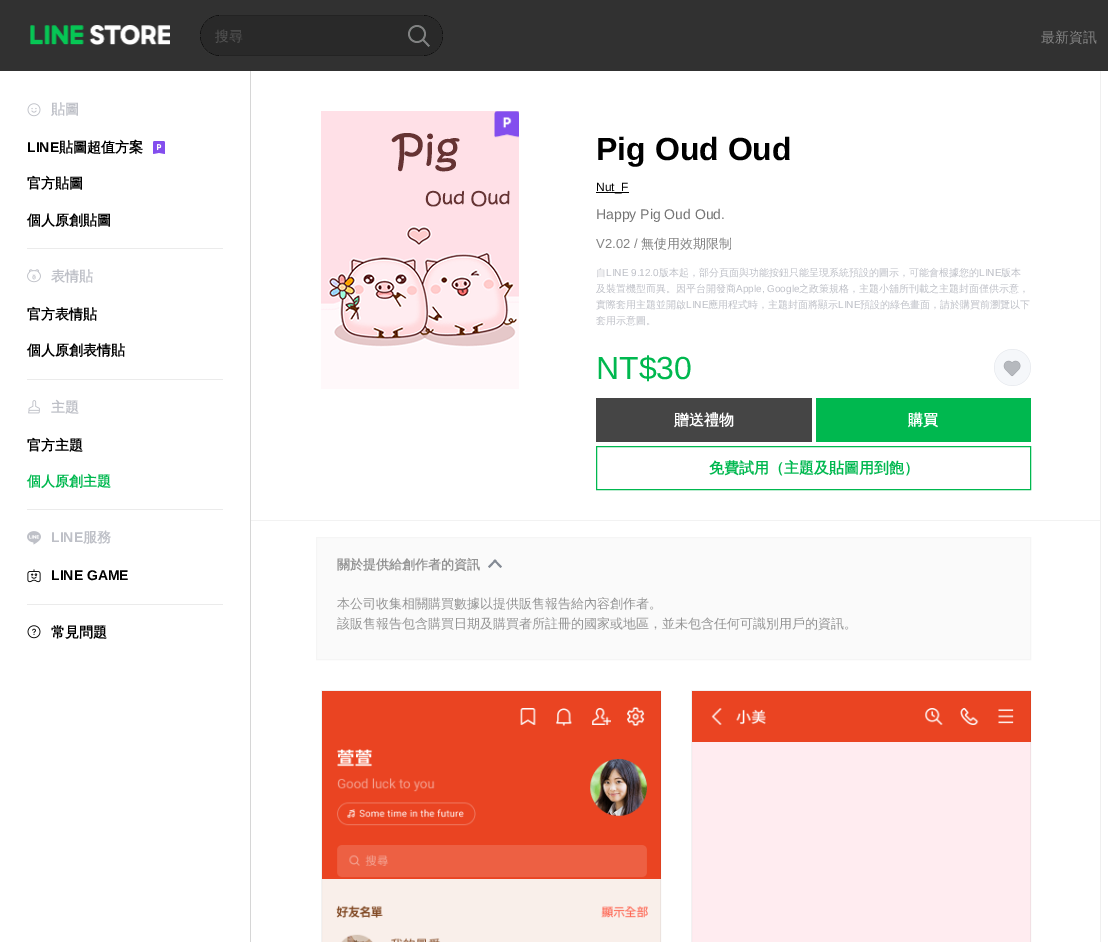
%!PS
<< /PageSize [1108 942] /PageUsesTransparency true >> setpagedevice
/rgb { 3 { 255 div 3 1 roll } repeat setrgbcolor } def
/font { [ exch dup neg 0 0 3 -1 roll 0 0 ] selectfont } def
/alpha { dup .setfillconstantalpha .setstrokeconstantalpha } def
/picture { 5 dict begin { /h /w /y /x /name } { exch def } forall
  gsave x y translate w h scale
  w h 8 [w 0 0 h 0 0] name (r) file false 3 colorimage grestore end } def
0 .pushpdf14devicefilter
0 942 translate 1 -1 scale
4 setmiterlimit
255 255 255 rgb
0 0 1108 942 rectfill
49 49 49 rgb
0 0 1108 71 rectfill
(img/1.rgb) 30 25 140 20 picture
(img/2.rgb) 200 15 243 41 picture
(img/3.rgb) 408 25 22 22 picture
(img/4.rgb) 27 103 14 14 picture
(img/5.rgb) 153 141 12 13 picture
235 235 235 rgb
27 248 196 1 rectfill
(img/6.rgb) 27 269 14 14 picture
27 379 196 1 rectfill
(img/7.rgb) 28 400 12 14 picture
27 509 196 1 rectfill
(img/8.rgb) 27 531 14 14 picture
(img/9.rgb) 27 569 14 14 picture
27 604 196 1 rectfill
(img/10.rgb) 27 625 14 14 picture
214 214 214 rgb
250 71 1 871 rectfill
(img/11.rgb) 321 111 198 278 picture
(img/12.rgb) 494 111 25 27 picture
0 0 0 rgb
596 192 33 1 rectfill
(img/13.rgb) 994 349 37 37 picture
69 69 69 rgb
596 398 216 44 rectfill
0 184 79 rgb
816 398 215 44 rectfill
596.5 446.5 434 43 rectstroke
242 242 242 rgb
251 520 850 1 rectfill
239 239 239 rgb
1100 71 1 871 rectfill
250 250 250 rgb
316.5 537.5 moveto 1030.5 537.5 lineto 1030.5 659.5 lineto 316.5 659.5 lineto closepath gsave fill grestore
245 245 245 rgb
stroke
132 138 148 rgb
488 566.5 moveto 495 559.5 lineto 496.5 560.5 lineto 489.5 568 lineto closepath fill
493.5 560.5 moveto 495 559.5 lineto 502 566.5 lineto 500.5 568 lineto closepath fill
(img/14.rgb) 322 691 339 251 picture
0.05 alpha
0 0 0 rgb
321.5 690.5 339 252 rectstroke
1 alpha
(img/15.rgb) 692 691 339 251 picture
0.05 alpha
691.5 690.5 339 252 rectstroke
/WenQuanYiZenHei-Medium 14 font
1 alpha
84 84 84 rgb
215 41 moveto (搜尋) show
132 132 132 rgb
1041 42 moveto (最新資訊) show
/WenQuanYiZenHei-Bold 14 font
190 192 199 rgb
51 114 moveto (貼圖) show
/LiberationSans-Bold 14 font
0 0 0 rgb
27 152 moveto (LINE) show
/WenQuanYiZenHei-Bold 14 font
[
  [(貼圖超值方案) 59 152]
  [(官方貼圖) 27 188]
  [(個人原創貼圖) 27 225]
] { aload pop moveto show } forall
190 192 199 rgb
51 281 moveto (表情貼) show
0 0 0 rgb
27 319 moveto (官方表情貼) show
27 355 moveto (個人原創表情貼) show
190 192 199 rgb
51 412 moveto (主題) show
0 0 0 rgb
27 450 moveto (官方主題) show
0 184 79 rgb
27 486 moveto (個人原創主題) show
/LiberationSans-Bold 14 font
190 192 199 rgb
51 542 moveto (LINE) show
/WenQuanYiZenHei-Bold 14 font
83 542 moveto (服務) show
/LiberationSans-Bold 14 font
0 0 0 rgb
51 580 moveto (LINE GAME) show
/WenQuanYiZenHei-Bold 14 font
51 637 moveto (常見問題) show
/LiberationSans-Bold 32 font
596 160 moveto (Pig Oud Oud) show
/LiberationSans-Regular 12 font
596 191 moveto (Nut_F) show
/LiberationSans-Regular 14 font
115 115 115 rgb
596 219 moveto (Happy Pig Oud Oud.) show
/LiberationSans-Regular 13 font
132 132 132 rgb
596 248 moveto (V2.02 /) show
/WenQuanYiZenHei-Medium 13 font
641 248 moveto (無使用效期限制) show
/WenQuanYiZenHei-Medium 10 font
190 192 199 rgb
596 276 moveto (自) show
/LiberationSans-Regular 10 font
606 276 moveto (LINE 9.12.0) show
/WenQuanYiZenHei-Medium 10 font
659 276 moveto (版本起，部分頁面與功能按鈕只能呈現系統預設的圖示，可能會根據您的) show
/LiberationSans-Regular 10 font
979 276 moveto (LINE) show
/WenQuanYiZenHei-Medium 10 font
1001 276 moveto (版本) show
596 292 moveto (及裝置機型而異。因平台開發商) show
/LiberationSans-Regular 10 font
736 292 moveto (Apple, Google) show
/WenQuanYiZenHei-Medium 10 font
799 292 moveto (之政策規格，主題小舖所刊載之主題封面僅供示意，) show
596 308 moveto (實際套用主題並開啟) show
/LiberationSans-Regular 10 font
686 308 moveto (LINE) show
/WenQuanYiZenHei-Medium 10 font
708 308 moveto (應用程式時，主題封面將顯示) show
/LiberationSans-Regular 10 font
838 308 moveto (LINE) show
/WenQuanYiZenHei-Medium 10 font
860 308 moveto (預設的綠色畫面，請於購買前瀏覽以下) show
596 324 moveto (套用示意圖。) show
/LiberationSans-Regular 32 font
0 184 79 rgb
596 379 moveto (NT$30) show
/WenQuanYiZenHei-Bold 15 font
255 255 255 rgb
674 425 moveto (贈送禮物) show
908 425 moveto (購買) show
0 184 79 rgb
709 473 moveto (免費試用（主題及貼圖用到飽）) show
/WenQuanYiZenHei-Bold 13 font
148 148 148 rgb
337 569 moveto (關於提供給創作者的資訊) show
/WenQuanYiZenHei-Medium 13 font
337 608 moveto (本公司收集相關購買數據以提供販售報告給內容創作者。) show
337 628 moveto (該販售報告包含購買日期及購買者所註冊的國家或地區，並未包含任何可識別用戶的資訊。) show
.poppdf14devicefilter showpage
